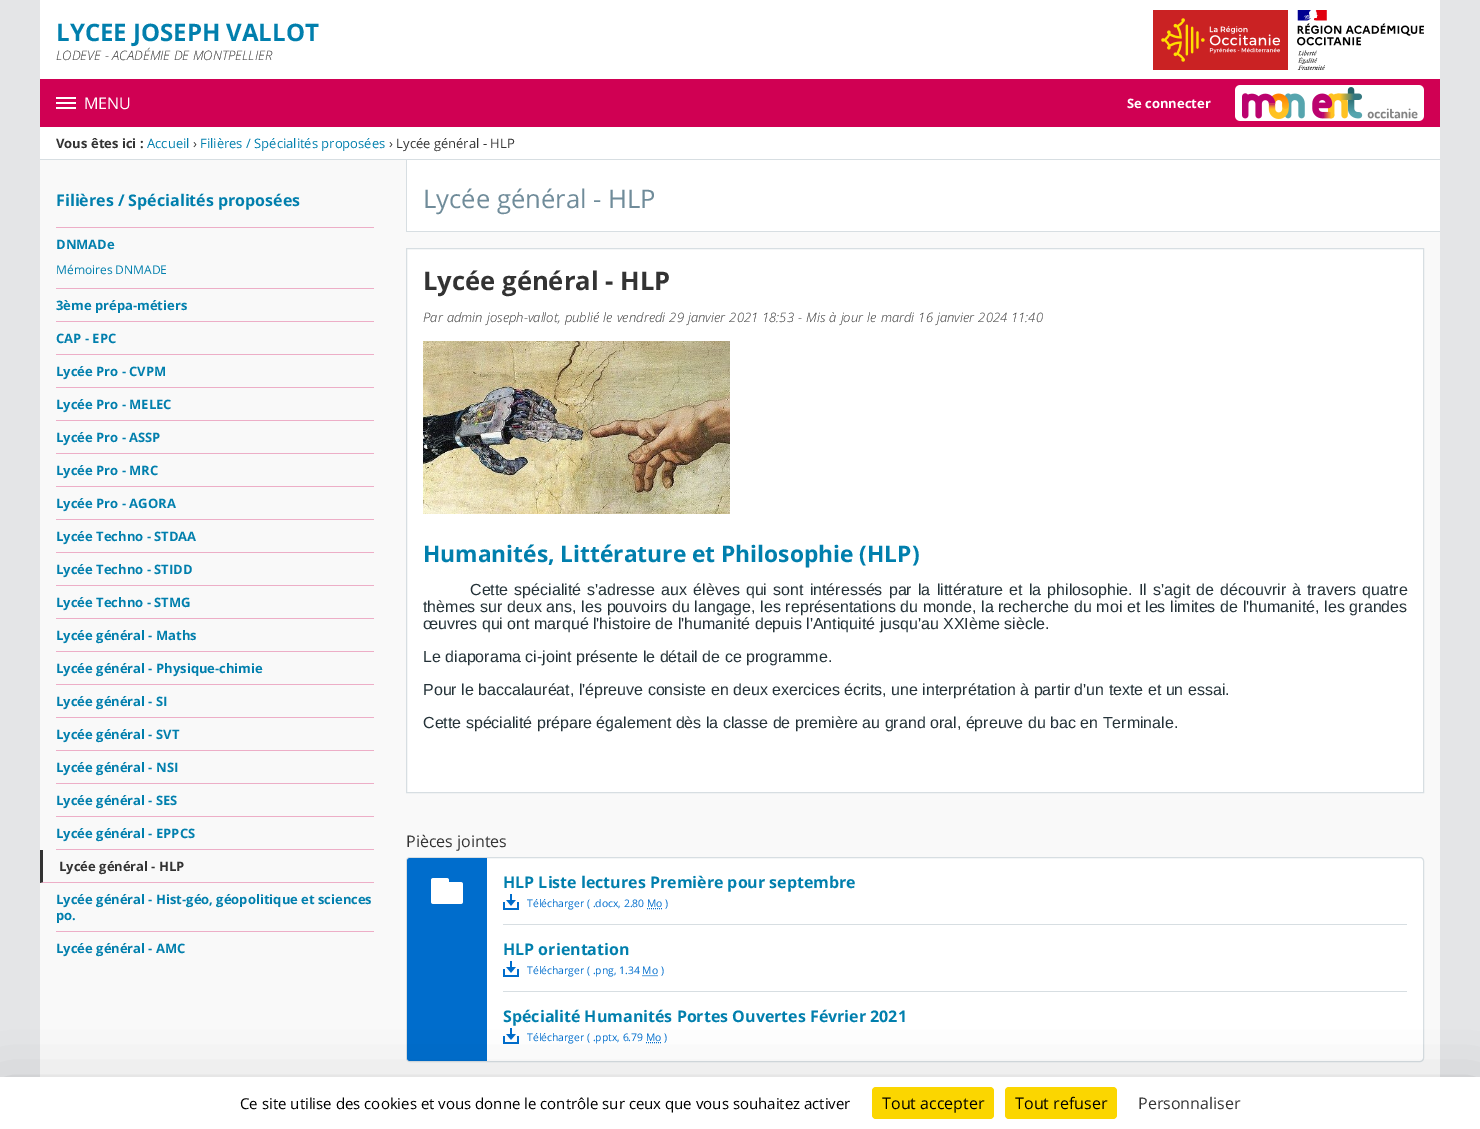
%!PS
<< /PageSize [1480 1129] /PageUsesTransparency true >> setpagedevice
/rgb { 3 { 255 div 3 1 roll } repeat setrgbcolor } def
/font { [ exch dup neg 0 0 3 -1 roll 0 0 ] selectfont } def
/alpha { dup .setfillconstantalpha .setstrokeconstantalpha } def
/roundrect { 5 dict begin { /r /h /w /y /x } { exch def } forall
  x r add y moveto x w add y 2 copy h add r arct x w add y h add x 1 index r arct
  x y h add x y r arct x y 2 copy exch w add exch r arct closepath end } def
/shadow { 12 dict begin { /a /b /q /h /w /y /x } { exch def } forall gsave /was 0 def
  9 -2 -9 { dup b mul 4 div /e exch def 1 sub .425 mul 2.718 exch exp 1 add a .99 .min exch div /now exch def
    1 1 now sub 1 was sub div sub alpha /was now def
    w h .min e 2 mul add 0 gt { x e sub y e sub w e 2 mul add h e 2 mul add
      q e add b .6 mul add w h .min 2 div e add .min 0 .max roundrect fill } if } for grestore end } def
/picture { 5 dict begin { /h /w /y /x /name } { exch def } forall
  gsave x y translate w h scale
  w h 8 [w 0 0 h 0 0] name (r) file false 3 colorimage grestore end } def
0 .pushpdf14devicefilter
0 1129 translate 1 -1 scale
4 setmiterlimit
228 229 231 rgb
0 0 1480 1129 rectfill
255 255 255 rgb
40 0 1400 159 rectfill
(img/1.rgb) 1153 10 135 60 picture
(img/2.rgb) 1297 10 127 60 picture
[
  [40 79 1400 48 208 0 83]
  [56 97 20 2 255 255 255]
  [56 102 20 2 255 255 255]
  [56 107 20 2 255 255 255]
] { aload pop rgb rectfill } forall
(img/3.rgb) 1235 85 189 36 picture
[
  [40 159 1400 1 215 222 226]
  [40 160 1400 917 249 249 249]
  [56 227 318 1 237 174 199]
  [56 288 318 1 237 174 199]
  [56 321 318 1 237 174 199]
  [56 354 318 1 237 174 199]
  [56 387 318 1 237 174 199]
  [56 420 318 1 237 174 199]
  [56 453 318 1 237 174 199]
  [56 486 318 1 237 174 199]
  [56 519 318 1 237 174 199]
  [56 552 318 1 237 174 199]
  [56 585 318 1 237 174 199]
  [56 618 318 1 237 174 199]
  [56 651 318 1 237 174 199]
  [56 684 318 1 237 174 199]
  [56 717 318 1 237 174 199]
  [56 750 318 1 237 174 199]
  [56 783 318 1 237 174 199]
  [56 816 318 1 237 174 199]
  [56 849 318 1 237 174 199]
] { aload pop rgb rectfill } forall
374 883 moveto 40 883 lineto 43 882 lineto 374 882 lineto closepath fill
51 51 51 rgb
40 883 moveto 40 850 lineto 43 850 lineto 43 882 lineto closepath fill
[
  [56 931 318 1 237 174 199]
  [407 160 1033 71 255 255 255]
  [406 231 1034 1 215 222 226]
  [406 160 1 72 215 222 226]
] { aload pop rgb rectfill } forall
255 255 255 rgb
406.5 248.5 moveto 1423.5 248.5 lineto 1423.5 792.5 lineto 406.5 792.5 lineto closepath gsave fill grestore
215 222 226 rgb
stroke
(img/4.rgb) 423 341 307 173 picture
255 255 255 rgb
406.5 857.5 1017 204 3.5 roundrect gsave fill grestore
215 222 226 rgb
stroke
0 109 204 rgb
410 858 moveto 487 858 lineto 487 1061 lineto 410 1061 lineto 408.5 1061 407 1059.5 407 1058 curveto 407 861 lineto 407 859.5 408.5 858 410 858 curveto closepath fill
(img/5.rgb) 431 878 32 26 picture
215 222 226 rgb
503 924 904 1 rectfill
(img/6.rgb) 503 894 16 16 picture
0 109 204 rgb
[1 1] 0 setdash
647 908.5 moveto 662.5 908.5 lineto stroke
215 222 226 rgb
503 991 904 1 rectfill
(img/6.rgb) 503 961 16 16 picture
0 109 204 rgb
642.5 975.5 moveto 658 975.5 lineto stroke
(img/6.rgb) 503 1028 16 16 picture
646 1042.5 moveto 661.5 1042.5 lineto stroke
0 0 0 rgb
0 1097 1480 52 0 30 0.25 shadow
255 255 255 rgb
0 1077 1480 52 rectfill
251 214 0 rgb
872 1087 122 32 4 roundrect fill
1005 1087 112 32 4 roundrect fill
/OpenSans-Bold 24 font
1 127 173 rgb
56 41 moveto (LYCEE JOSEPH VALLOT) show
/OpenSans-LightItalic 13 font
51 51 51 rgb
56 60 moveto (LODEVE - ACADÉMIE DE MONTPELLIER) show
/OpenSans-Regular 16 font
255 255 255 rgb
84 109 moveto (MENU) show
/OpenSans-Bold 13 font
1127 108 moveto (Se connecter) show
51 51 51 rgb
56 148 moveto (Vous êtes ici :) show
/OpenSans-Regular 13 font
1 127 173 rgb
147 148 moveto (Accueil) show
51 51 51 rgb
193 148 moveto (›) show
1 127 173 rgb
200 148 moveto (Filières / Spécialités proposées) show
51 51 51 rgb
389 148 moveto (› Lycée général - HLP) show
/OpenSans-Bold 16 font
1 127 173 rgb
56 206 moveto (Filières / Spécialités proposées) show
/OpenSans-Bold 13 font
56 249 moveto (DNMADe) show
/OpenSans-Regular 12 font
56 274 moveto (Mémoires DNMADE) show
/OpenSans-Bold 13 font
[
  [(3ème prépa-métiers) 56 310]
  [(CAP - EPC) 56 343]
  [(Lycée Pro - CVPM) 56 376]
  [(Lycée Pro - MELEC) 56 409]
  [(Lycée Pro - ASSP) 56 442]
  [(Lycée Pro - MRC) 56 475]
  [(Lycée Pro - AGORA) 56 508]
  [(Lycée Techno - STDAA) 56 541]
  [(Lycée Techno - STIDD) 56 574]
  [(Lycée Techno - STMG) 56 607]
  [(Lycée général - Maths) 56 640]
  [(Lycée général - Physique-chimie) 56 673]
  [(Lycée général - SI) 56 706]
  [(Lycée général - SVT) 56 739]
  [(Lycée général - NSI) 56 772]
  [(Lycée général - SES) 56 805]
  [(Lycée général - EPPCS) 56 838]
] { aload pop moveto show } forall
51 51 51 rgb
59 871 moveto (Lycée général - HLP) show
1 127 173 rgb
[
  [(Lycée général - Hist-géo, géopolitique et sciences) 56 904]
  [(po.) 56 920]
  [(Lycée général - AMC) 56 953]
] { aload pop moveto show } forall
/OpenSans-Regular 25.6 font
112 140 154 rgb
423 208 moveto (Lycée général - HLP) show
/OpenSans-Bold 25.6 font
51 51 51 rgb
423 290 moveto (Lycée général - HLP) show
/OpenSans-LightItalic 13 font
423 322 moveto 0.75 0 32 (Par admin joseph-vallot, publié le vendredi 29 janvier 2021 18:53 - Mis à jour le mardi 16 janvier 2024 11:40) widthshow
/OpenSans-Bold 22.75 font
1 127 173 rgb
423 562 moveto (Humanités, Littérature et Philosophie \(HLP\)) show
/LiberationSans-Regular 16 font
36 50 56 rgb
470 595 moveto 1.7 0 32 (Cette spécialité s'adresse aux élèves qui sont intéressés par la littérature et la philosophie. Il s'agit de découvrir à travers quatre) widthshow
423 612 moveto 0.25 0 32 (thèmes sur deux ans, les pouvoirs du langage, les représentations du monde, la recherche du moi et les limites de l'humanité, les grandes) widthshow
[
  [(œuvres qui ont marqué l'histoire de l'humanité depuis l'Antiquité jusqu'au XXIème siècle.) 423 629]
  [(Le diaporama ci-joint présente le détail de ce programme.) 423 662]
  [(Pour le baccalauréat, l'épreuve consiste en deux exercices écrits, une interprétation à partir d'un texte et un essai.) 423 695]
  [(Cette spécialité prépare également dès la classe de première au grand oral, épreuve du bac en Terminale.) 423 728]
] { aload pop moveto show } forall
/OpenSans-Regular 16 font
51 51 51 rgb
406 847 moveto (Pièces jointes) show
/OpenSans-Bold 16 font
1 127 173 rgb
503 888 moveto (HLP Liste lectures Première pour septembre) show
/OpenSans-Regular 10.4 font
0 109 204 rgb
527 907 moveto (Télécharger \( .docx, 2.80 Mo \)) show
/OpenSans-Bold 16 font
1 127 173 rgb
503 955 moveto (HLP orientation) show
/OpenSans-Regular 10.4 font
0 109 204 rgb
527 974 moveto (Télécharger \( .png, 1.34 Mo \)) show
/OpenSans-Bold 16 font
1 127 173 rgb
503 1022 moveto (Spécialité Humanités Portes Ouvertes Février 2021) show
/OpenSans-Regular 10.4 font
0 109 204 rgb
527 1041 moveto (Télécharger \( .pptx, 6.79 Mo \)) show
/OpenSans-Regular 15 font
0 0 0 rgb
240 1109 moveto (Ce site utilise des cookies et vous donne le contrôle sur ceux que vous souhaitez activer) show
/OpenSans-Regular 16 font
882 1109 moveto (Tout accepter) show
1015 1109 moveto (Tout refuser) show
51 51 51 rgb
1138 1109 moveto (Personnaliser) show
.poppdf14devicefilter showpage
